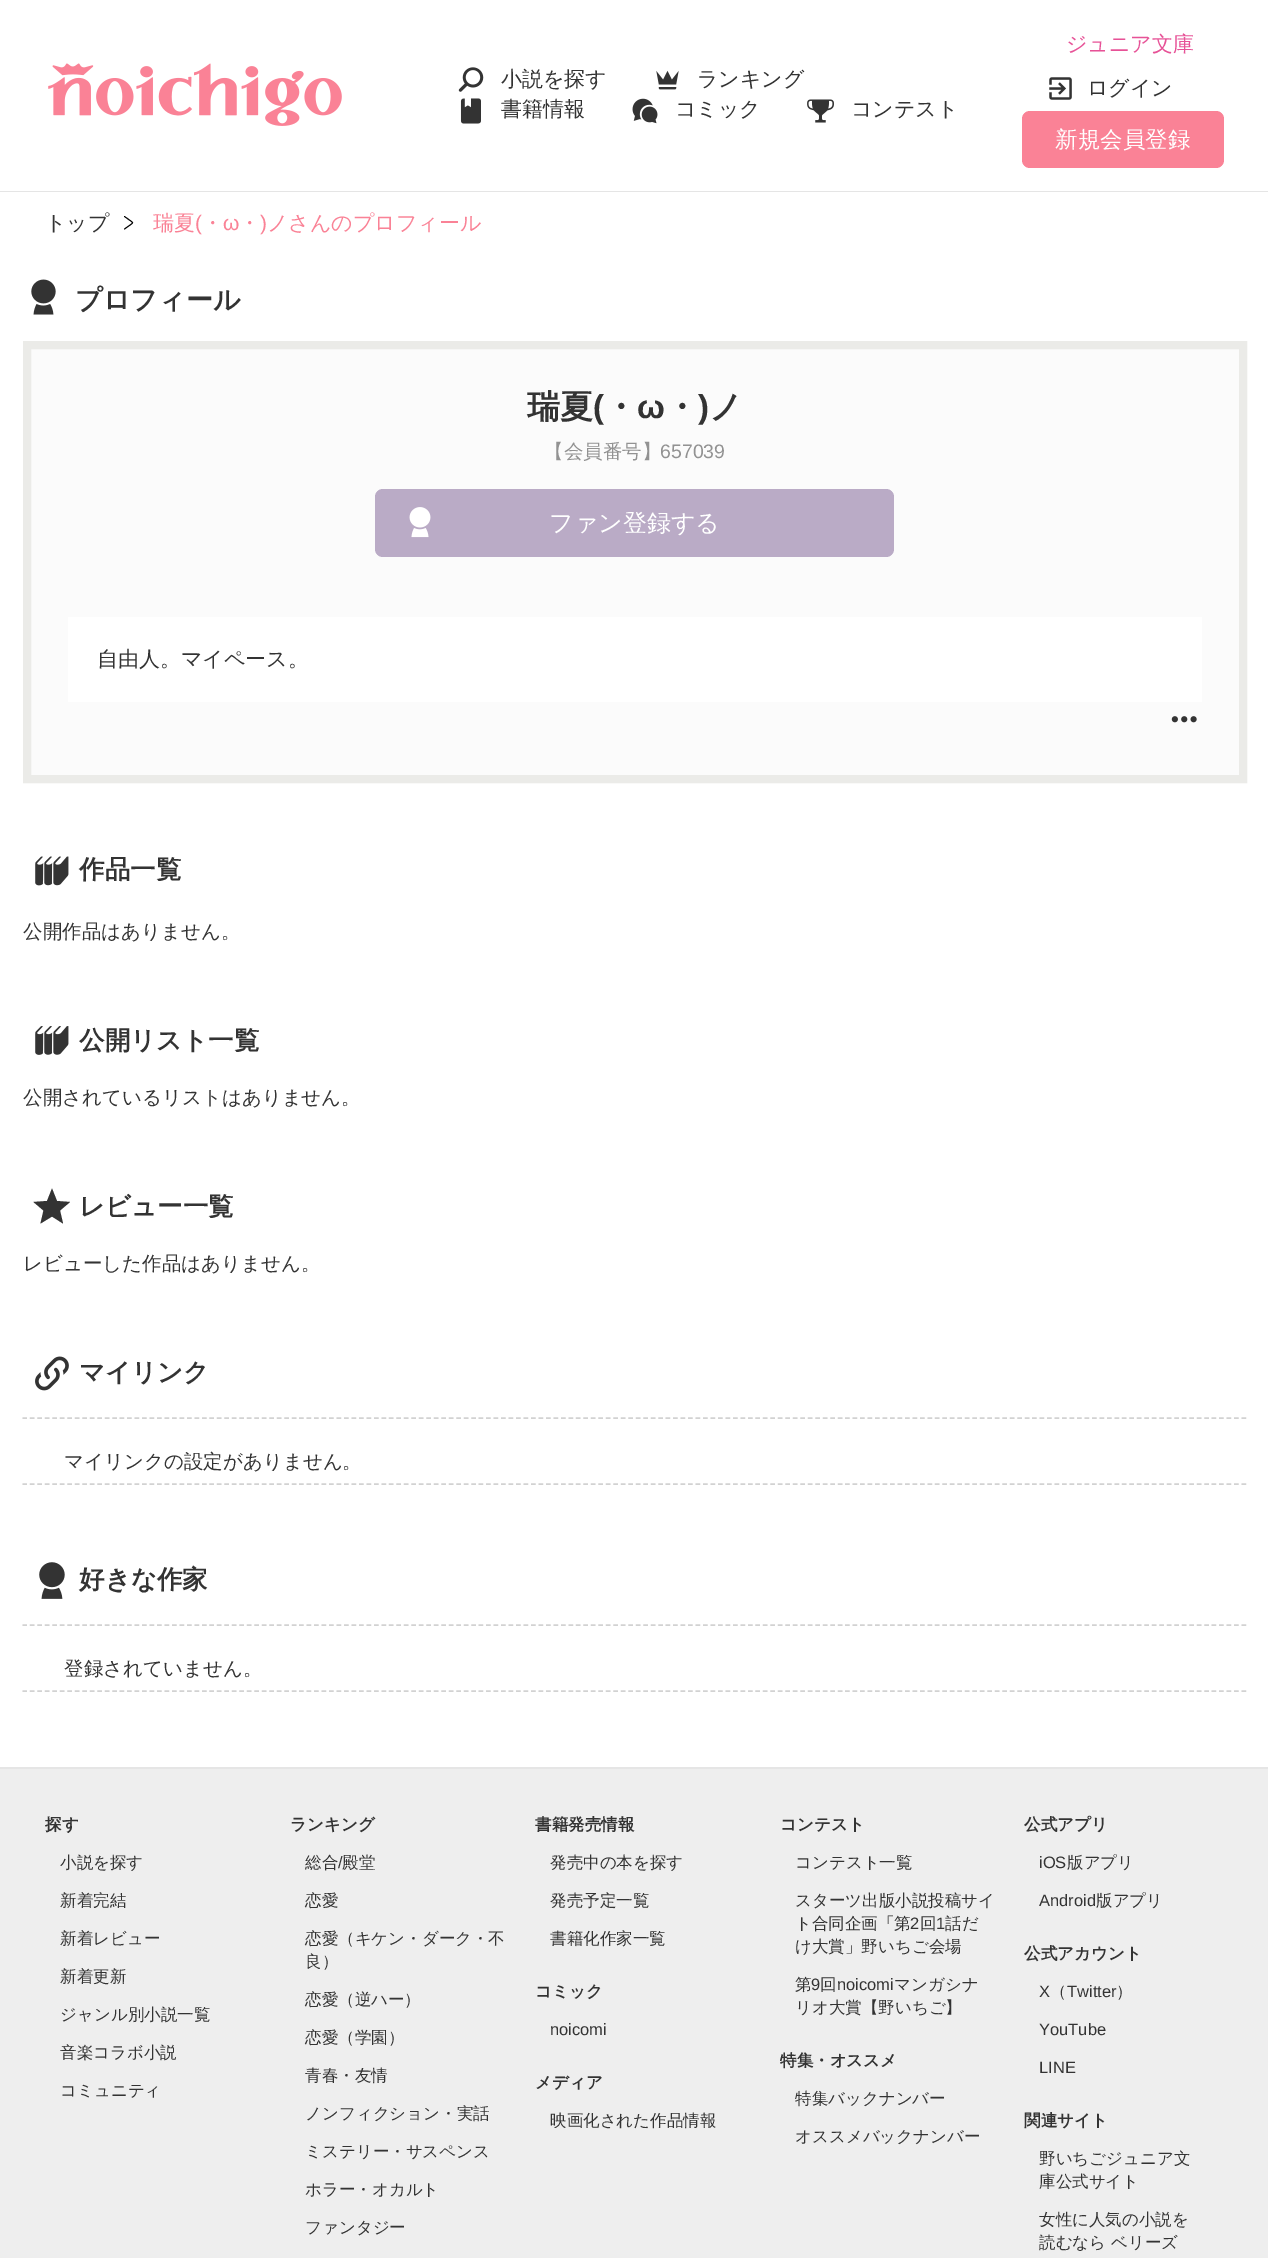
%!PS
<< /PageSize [1268 2258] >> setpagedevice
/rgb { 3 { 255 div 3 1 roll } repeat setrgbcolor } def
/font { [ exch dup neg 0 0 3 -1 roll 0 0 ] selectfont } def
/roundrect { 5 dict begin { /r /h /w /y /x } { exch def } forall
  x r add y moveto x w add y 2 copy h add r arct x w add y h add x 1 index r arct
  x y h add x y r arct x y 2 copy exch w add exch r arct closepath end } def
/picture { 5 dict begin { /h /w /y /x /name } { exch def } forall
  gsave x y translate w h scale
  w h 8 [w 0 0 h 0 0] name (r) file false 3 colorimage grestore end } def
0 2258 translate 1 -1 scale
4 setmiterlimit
255 255 255 rgb
0 0 1268 2258 rectfill
229 229 229 rgb
0 191 1268 1 rectfill
(img/1.rgb) 48 63 294 63 picture
(img/2.rgb) 458 67 26 25 picture
(img/3.rgb) 656 70 23 20 picture
(img/4.rgb) 460 98 21 26 picture
(img/5.rgb) 632 98 26 26 picture
(img/6.rgb) 807 99 27 24 picture
(img/7.rgb) 1049 77 23 23 picture
250 130 150 rgb
1022 111 202 57 8 roundrect fill
0 0 0 rgb
0.9 setlinewidth
1 setlinecap
1 setlinejoin
124.5 229 moveto 131.5 224 lineto 133 222.5 133 223 131.5 221.5 curveto 124.5 216.5 lineto stroke
(img/8.rgb) 31 279 25 36 picture
251 251 251 rgb
27 345 moveto 1243 345 lineto 1243 779 lineto 27 779 lineto closepath gsave fill grestore
235 235 232 rgb
8 setlinewidth
0 setlinecap
0 setlinejoin
stroke
186 171 198 rgb
375 489 519 68 8 roundrect fill
(img/9.rgb) 409 507 22 31 picture
255 255 255 rgb
68 617 1134 85 rectfill
(img/10.rgb) 1171 716 26 7 picture
(img/11.rgb) 35 856 34 30 picture
(img/12.rgb) 35 1026 34 29 picture
51 51 51 rgb
52 1216.5 moveto 63 1223.5 lineto 60 1210.5 lineto 70 1202 lineto 57 1201 lineto 52 1188.5 lineto 47 1201 lineto 33.5 1202 lineto 43.5 1210.5 lineto 40.5 1223.5 lineto closepath fill
(img/13.rgb) 35 1356 34 35 picture
210 210 210 rgb
1.5 setlinewidth
[4.5 2.98] 0 setdash
22.5 1418 moveto 1246.5 1418 lineto stroke
22.5 1484 moveto 1246.5 1484 lineto stroke
(img/14.rgb) 39 1562 26 37 picture
22.5 1625 moveto 1246.5 1625 lineto stroke
22.5 1691 moveto 1246.5 1691 lineto stroke
238 238 238 rgb
0 1769 1268 489 rectfill
229 229 229 rgb
0 1767 1268 2 rectfill
/WenQuanYiZenHei-Medium 21 font
51 51 51 rgb
[
  [(小説を探す) 501 86]
  [(ランキング) 697 86]
  [(書籍情報) 501 116]
  [(コミック) 675 116]
  [(コンテスト) 851 116]
] { aload pop moveto show } forall
231 82 151 rgb
1066 51 moveto (ジュニア文庫) show
51 51 51 rgb
1087 95 moveto (ログイン) show
/WenQuanYiZenHei-Medium 22.5 font
255 255 255 rgb
1055 147 moveto (新規会員登録) show
/WenQuanYiZenHei-Medium 21 font
51 51 51 rgb
45 230 moveto (トップ) show
250 130 150 rgb
153 230 moveto (瑞夏) show
/LiberationSans-Regular 21 font
195 230 moveto (\() show
/WenQuanYiZenHei-Medium 21 font
202 230 moveto (・) show
/LiberationSans-Regular 21 font
223 230 moveto (ω) show
/WenQuanYiZenHei-Medium 21 font
239 230 moveto (・) show
/LiberationSans-Regular 21 font
260 230 moveto (\)) show
/WenQuanYiZenHei-Medium 21 font
267 230 moveto (ノさんのプロフィール) show
/WenQuanYiZenHei-Bold 27 font
51 51 51 rgb
75 309 moveto (プロフィール) show
/WenQuanYiZenHei-Bold 33 font
527 418 moveto (瑞夏) show
/LiberationSans-Bold 33 font
593 418 moveto (\() show
/WenQuanYiZenHei-Bold 33 font
604 418 moveto (・) show
/LiberationSans-Bold 33 font
637 418 moveto (ω) show
/WenQuanYiZenHei-Bold 33 font
665 418 moveto (・) show
/LiberationSans-Bold 33 font
698 418 moveto (\)) show
/WenQuanYiZenHei-Bold 33 font
709 418 moveto (ノ) show
/WenQuanYiZenHei-Medium 19.5 font
146 146 146 rgb
544 458 moveto (【会員番号】) show
/LiberationSans-Regular 19.5 font
660 458 moveto (657039) show
/WenQuanYiZenHei-Medium 24 font
255 255 255 rgb
549 531 moveto (ファン登録する) show
/WenQuanYiZenHei-Medium 21 font
51 51 51 rgb
97 666 moveto (自由人。マイペース。) show
/WenQuanYiZenHei-Bold 25.5 font
79 878 moveto (作品一覧) show
/WenQuanYiZenHei-Medium 19.5 font
23 938 moveto (公開作品はありません。) show
/WenQuanYiZenHei-Bold 25.5 font
79 1049 moveto (公開リスト一覧) show
/WenQuanYiZenHei-Medium 19.5 font
23 1104 moveto (公開されているリストはありません。) show
/WenQuanYiZenHei-Bold 25.5 font
79 1215 moveto (レビュー一覧) show
/WenQuanYiZenHei-Medium 19.5 font
23 1270 moveto (レビューした作品はありません。) show
/WenQuanYiZenHei-Bold 25.5 font
79 1381 moveto (マイリンク) show
/WenQuanYiZenHei-Medium 19.5 font
64 1468 moveto (マイリンクの設定がありません。) show
/WenQuanYiZenHei-Bold 25.5 font
79 1588 moveto (好きな作家) show
/WenQuanYiZenHei-Medium 19.5 font
64 1675 moveto (登録されていません。) show
/WenQuanYiZenHei-Bold 16.5 font
45 1830 moveto (探す) show
/WenQuanYiZenHei-Medium 16.5 font
[
  [(小説を探す) 60 1868]
  [(新着完結) 60 1906]
  [(新着レビュー) 60 1944]
  [(新着更新) 60 1982]
  [(ジャンル別小説一覧) 60 2020]
  [(音楽コラボ小説) 60 2058]
  [(コミュニティ) 60 2096]
] { aload pop moveto show } forall
/WenQuanYiZenHei-Bold 16.5 font
290 1830 moveto (ランキング) show
/WenQuanYiZenHei-Medium 16.5 font
305 1868 moveto (総合) show
/LiberationSans-Regular 16.5 font
338 1868 moveto (/) show
/WenQuanYiZenHei-Medium 16.5 font
[
  [(殿堂) 342 1868]
  [(恋愛) 305 1906]
  [(恋愛（キケン・ダーク・不) 305 1944]
  [(良）) 305 1967]
  [(恋愛（逆ハー）) 305 2005]
  [(恋愛（学園）) 305 2043]
  [(青春・友情) 305 2081]
  [(ノンフィクション・実話) 305 2119]
  [(ミステリー・サスペンス) 305 2157]
  [(ホラー・オカルト) 305 2195]
  [(ファンタジー) 305 2233]
] { aload pop moveto show } forall
/WenQuanYiZenHei-Bold 16.5 font
535 1830 moveto (書籍発売情報) show
/WenQuanYiZenHei-Medium 16.5 font
[
  [(発売中の本を探す) 550 1868]
  [(発売予定一覧) 550 1906]
  [(書籍化作家一覧) 550 1944]
] { aload pop moveto show } forall
/WenQuanYiZenHei-Bold 16.5 font
535 1997 moveto (コミック) show
/LiberationSans-Regular 16.5 font
550 2035 moveto (noicomi) show
/WenQuanYiZenHei-Bold 16.5 font
535 2088 moveto (メディア) show
/WenQuanYiZenHei-Medium 16.5 font
550 2126 moveto (映画化された作品情報) show
/WenQuanYiZenHei-Bold 16.5 font
780 1830 moveto (コンテスト) show
/WenQuanYiZenHei-Medium 16.5 font
[
  [(コンテスト一覧) 795 1868]
  [(スターツ出版小説投稿サイ) 795 1906]
  [(ト合同企画「第) 795 1929]
] { aload pop moveto show } forall
/LiberationSans-Regular 16.5 font
910 1929 moveto (2) show
/WenQuanYiZenHei-Medium 16.5 font
920 1929 moveto (回) show
/LiberationSans-Regular 16.5 font
936 1929 moveto (1) show
/WenQuanYiZenHei-Medium 16.5 font
[
  [(話だ) 945 1929]
  [(け大賞」野いちご会場) 795 1952]
  [(第) 795 1990]
] { aload pop moveto show } forall
/LiberationSans-Regular 16.5 font
811 1990 moveto (9) show
/WenQuanYiZenHei-Medium 16.5 font
820 1990 moveto (回) show
/LiberationSans-Regular 16.5 font
837 1990 moveto (noicomi) show
/WenQuanYiZenHei-Medium 16.5 font
894 1990 moveto (マンガシナ) show
795 2013 moveto (リオ大賞【野いちご】) show
/WenQuanYiZenHei-Bold 16.5 font
780 2066 moveto (特集・オススメ) show
/WenQuanYiZenHei-Medium 16.5 font
795 2104 moveto (特集バックナンバー) show
795 2142 moveto (オススメバックナンバー) show
/WenQuanYiZenHei-Bold 16.5 font
1024 1830 moveto (公式アプリ) show
/LiberationSans-Regular 16.5 font
1039 1868 moveto (iOS) show
/WenQuanYiZenHei-Medium 16.5 font
1067 1868 moveto (版アプリ) show
/LiberationSans-Regular 16.5 font
1039 1906 moveto (Android) show
/WenQuanYiZenHei-Medium 16.5 font
1096 1906 moveto (版アプリ) show
/WenQuanYiZenHei-Bold 16.5 font
1024 1959 moveto (公式アカウント) show
/LiberationSans-Regular 16.5 font
1039 1997 moveto (X) show
/WenQuanYiZenHei-Medium 16.5 font
1050 1997 moveto (（) show
/LiberationSans-Regular 16.5 font
1067 1997 moveto (Twitter) show
/WenQuanYiZenHei-Medium 16.5 font
1116 1997 moveto (）) show
/LiberationSans-Regular 16.5 font
1039 2035 moveto (YouTube) show
1039 2073 moveto (LINE) show
/WenQuanYiZenHei-Bold 16.5 font
1024 2126 moveto (関連サイト) show
/WenQuanYiZenHei-Medium 16.5 font
[
  [(野いちごジュニア文) 1039 2164]
  [(庫公式サイト) 1039 2187]
  [(女性に人気の小説を) 1039 2225]
  [(読むなら) 1039 2248]
  [(ベリーズ) 1111 2248]
] { aload pop moveto show } forall
showpage
